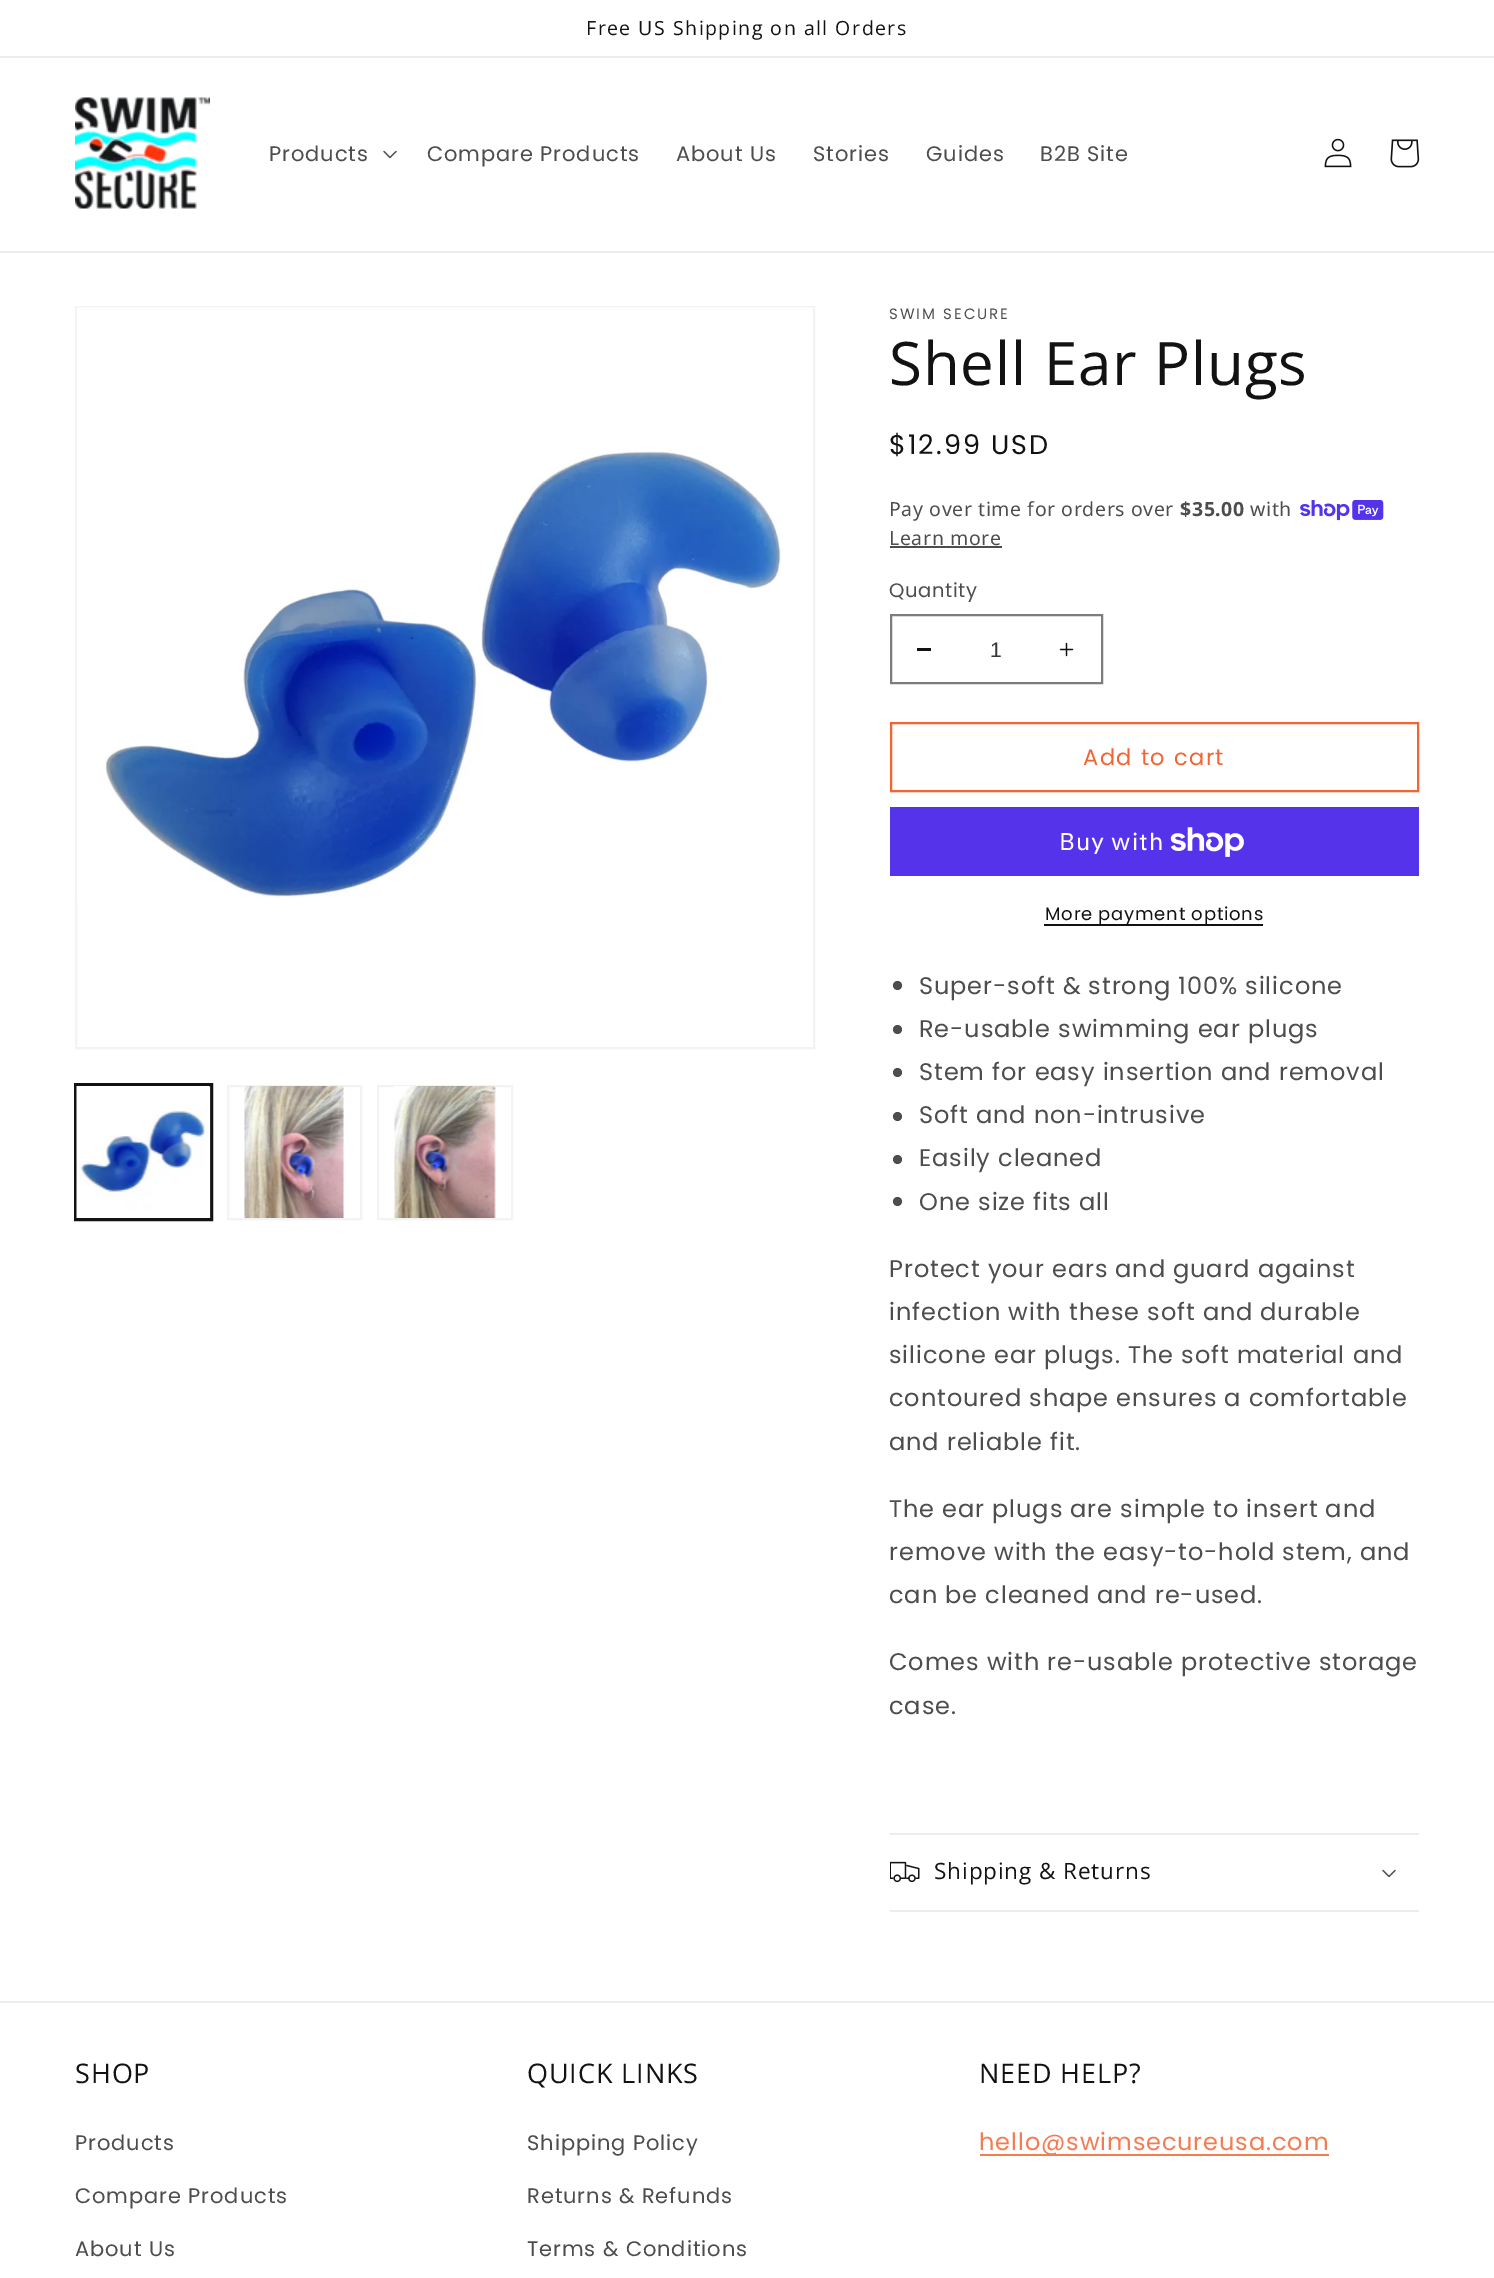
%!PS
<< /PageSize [1494 2278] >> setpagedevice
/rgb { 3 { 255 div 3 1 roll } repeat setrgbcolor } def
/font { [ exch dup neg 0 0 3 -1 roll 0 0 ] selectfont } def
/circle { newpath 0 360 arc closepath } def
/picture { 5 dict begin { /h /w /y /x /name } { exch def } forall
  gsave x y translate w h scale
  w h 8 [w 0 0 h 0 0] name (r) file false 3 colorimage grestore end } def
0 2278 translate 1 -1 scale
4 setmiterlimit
255 255 255 rgb
0 0 1494 2278 rectfill
236 236 236 rgb
0 56 1494 2 rectfill
0 251 1494 2 rectfill
(img/1.rgb) 75 97 135 112 picture
(img/2.rgb) 383 150 14 9 picture
(img/3.rgb) 1324 138 28 30 picture
(img/4.rgb) 1390 139 30 29 picture
243 243 243 rgb
2 setlinewidth
76 307 738 741 rectstroke
(img/5.rgb) 77 307 736 592 picture
18 18 18 rgb
75 1084 137 136 rectstroke
76 1086 135 133 rectstroke
(img/6.rgb) 76 1086 135 132 picture
243 243 243 rgb
228 1086 133 133 rectstroke
(img/7.rgb) 244 1086 100 132 picture
378 1086 134 133 rectstroke
(img/8.rgb) 394 1086 102 132 picture
(img/9.rgb) 1300 500 84 21 picture
77 77 77 rgb
890 546 112 2 rectfill
18 18 18 rgb
917 648 14 3 rectfill
(img/10.rgb) 1059 642 15 15 picture
125 125 125 rgb
891 615 211 68 rectstroke
242 101 51 rgb
891 723 527 68 rectstroke
84 51 235 rgb
890 807 529 69 rectfill
(img/11.rgb) 1170 827 74 30 picture
18 18 18 rgb
1044 924 219 2 rectfill
77 77 77 rgb
897.5 985.5 4.5 circle fill
897.5 1029.5 4.5 circle fill
897.5 1072.5 4.5 circle fill
897.5 1116.5 4.5 circle fill
897.5 1159.5 4.5 circle fill
897.5 1201.5 4.5 circle fill
236 236 236 rgb
890 1833 529 2 rectfill
890 1910 529 2 rectfill
(img/12.rgb) 890 1861 30 22 picture
(img/2.rgb) 1382 1869 14 9 picture
0 2001 1494 2 rectfill
244 124 82 rgb
980 2154 349 2 rectfill
/OpenSans-Regular 19.5 font
18 18 18 rgb
586 35 moveto 1.5 0 (Free US Shipping on all Orders) ashow
/Poppins-Regular 21 font
77 77 77 rgb
269 161 moveto 0.9 0 (Products) ashow
427 161 moveto 0.9 0 (Compare Products) ashow
676 161 moveto 0.9 0 (About Us) ashow
813 161 moveto 0.9 0 (Stories) ashow
926 161 moveto 0.9 0 (Guides) ashow
1040 161 moveto 0.9 0 (B2B Site) ashow
/Poppins-Regular 15 font
889 319 moveto 2 0 (SWIM SECURE) ashow
/OpenSans-Regular 60 font
18 18 18 rgb
889 385 moveto 0.9 0 (Shell Ear Plugs) ashow
/Poppins-Regular 27 font
889 454 moveto 2 0 ($12.99 USD) ashow
/NotoSans-Regular 19.5 font
77 77 77 rgb
889 516 moveto 0.6 0 (Pay over time for orders over) ashow
/NotoSans-Bold 19.5 font
1180 516 moveto 0.6 0 ($35.00) ashow
/NotoSans-Regular 19.5 font
1250 516 moveto 0.6 0 (with) ashow
889 545 moveto 0.6 0 (Learn more) ashow
/Poppins-Regular 19.5 font
889 597 moveto 0.6 0 (Quantity) ashow
/LiberationSans-Regular 21 font
54 54 54 rgb
990 657 moveto (1) show
/Poppins-Regular 22.5 font
242 101 51 rgb
1083 765 moveto 1.5 0 (Add to cart) ashow
/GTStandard-Regular 24 font
255 255 255 rgb
1059 850 moveto 0.9 0 (Buy with) ashow
/Poppins-Regular 18 font
18 18 18 rgb
1045 920 moveto 0.75 0 (More payment options) ashow
/Poppins-Regular 24 font
77 77 77 rgb
919 994 moveto 0.9 0 (Super-soft & strong 100% silicone) ashow
919 1037 moveto 0.9 0 (Re-usable swimming ear plugs) ashow
919 1080 moveto 0.9 0 (Stem for easy insertion and removal) ashow
919 1123 moveto 0.9 0 (Soft and non-intrusive) ashow
919 1166 moveto 0.9 0 (Easily cleaned) ashow
919 1210 moveto 0.9 0 (One size fits all) ashow
889 1277 moveto 0.9 0 (Protect your ears and guard against) ashow
889 1320 moveto 0.9 0 (infection with these soft and durable) ashow
889 1363 moveto 0.9 0 (silicone ear plugs. The soft material and) ashow
889 1406 moveto 0.9 0 (contoured shape ensures a comfortable) ashow
889 1450 moveto 0.9 0 (and reliable fit.) ashow
889 1517 moveto 0.9 0 (The ear plugs are simple to insert and) ashow
889 1560 moveto 0.9 0 (remove with the easy-to-hold stem, and) ashow
889 1603 moveto 0.9 0 (can be cleaned and re-used.) ashow
889 1670 moveto 0.9 0 (Comes with re-usable protective storage) ashow
889 1714 moveto 0.9 0 (case.) ashow
/OpenSans-Regular 22.5 font
18 18 18 rgb
934 1879 moveto 0.9 0 (Shipping & Returns) ashow
/OpenSans-Regular 27 font
75 2083 moveto 0.9 0 (SHOP) ashow
/Poppins-Regular 21 font
77 77 77 rgb
75 2150 moveto 0.9 0 (Products) ashow
75 2203 moveto 0.9 0 (Compare Products) ashow
75 2256 moveto 0.9 0 (About Us) ashow
/OpenSans-Regular 27 font
18 18 18 rgb
527 2083 moveto 0.9 0 (QUICK LINKS) ashow
/Poppins-Regular 21 font
77 77 77 rgb
527 2150 moveto 0.9 0 (Shipping Policy) ashow
527 2203 moveto 0.9 0 (Returns & Refunds) ashow
527 2256 moveto 0.9 0 (Terms & Conditions) ashow
/OpenSans-Regular 27 font
18 18 18 rgb
979 2083 moveto 0.9 0 (NEED HELP?) ashow
/Poppins-Regular 24 font
244 124 82 rgb
979 2150 moveto 0.9 0 (hello@swimsecureusa.com) ashow
showpage
